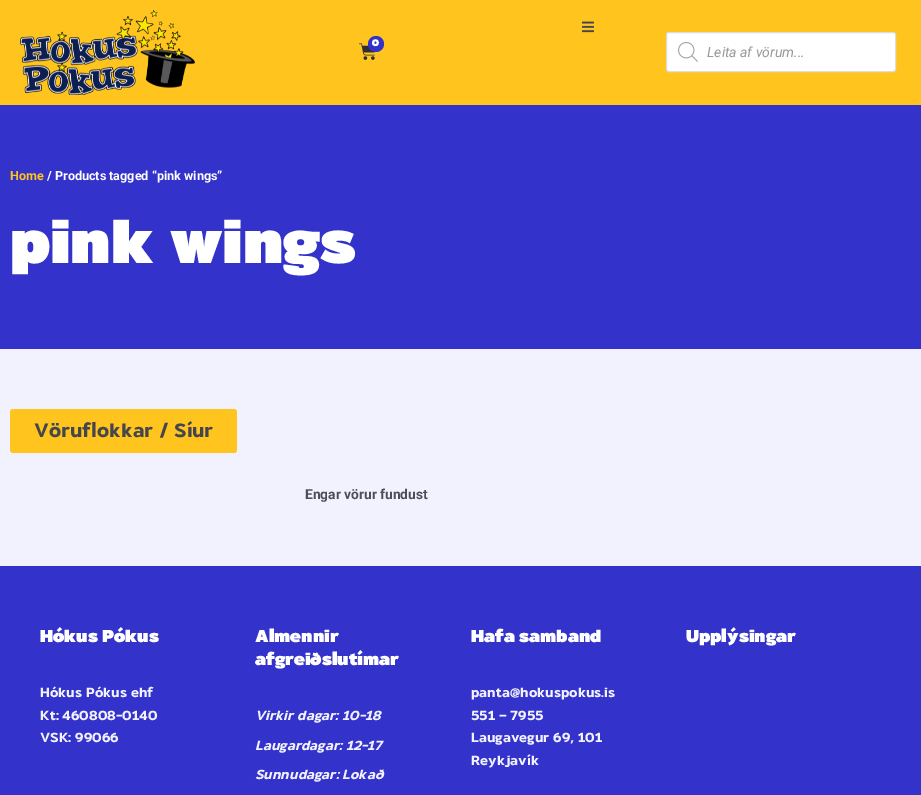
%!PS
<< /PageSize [921 795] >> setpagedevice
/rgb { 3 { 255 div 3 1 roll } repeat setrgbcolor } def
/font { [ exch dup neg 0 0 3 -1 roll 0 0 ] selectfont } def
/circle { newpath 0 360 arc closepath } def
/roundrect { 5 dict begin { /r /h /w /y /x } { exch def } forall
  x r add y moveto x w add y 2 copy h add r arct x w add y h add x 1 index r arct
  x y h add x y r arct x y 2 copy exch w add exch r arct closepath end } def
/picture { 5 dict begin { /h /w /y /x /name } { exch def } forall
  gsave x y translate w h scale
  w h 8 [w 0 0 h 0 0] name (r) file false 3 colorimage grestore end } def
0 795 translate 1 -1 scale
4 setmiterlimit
51 51 203 rgb
0 0 921 795 rectfill
255 196 29 rgb
0 0 921 105 rectfill
(img/1.rgb) 20 10 175 85 picture
(img/2.rgb) 582 21 12 12 picture
(img/3.rgb) 359 43 17 17 picture
51 51 203 rgb
376 44 8 circle fill
255 255 255 rgb
666.5 32.5 229 39 2.5 roundrect gsave fill grestore
221 221 221 rgb
stroke
(img/4.rgb) 678 42 20 20 picture
242 242 255 rgb
0 349 921 217 rectfill
255 196 29 rgb
10 409 227 44 3 roundrect fill
/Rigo-Regular 10 font
255 255 255 rgb
372 46 moveto (0) show
/Roboto-Italic 14 font
153 153 153 rgb
707 57 moveto (Leita af vörum...) show
/Roboto-Bold 12.6 font
255 196 29 rgb
10 180 moveto (Home) show
255 255 255 rgb
47 180 moveto (/ Products tagged “pink wings”) show
/Rigo-Regular 64 font
10 263 moveto (pink wings) show
/Rigo-Bold 20 font
69 69 77 rgb
34 437 moveto (Vöruflokkar / Síur) show
/Roboto-Bold 13.75 font
75 79 88 rgb
305 499 moveto (Engar vörur fundust) show
/Rigo-Regular 18 font
255 255 255 rgb
40 642 moveto (Hókus Pókus) show
/Rigo-Bold 13.75 font
242 242 255 rgb
[
  [(Hókus Pókus ehf) 40 697]
  [(Kt: 460808-0140) 40 720]
  [(VSK: 99066) 40 742]
] { aload pop moveto show } forall
/Rigo-Regular 18 font
255 255 255 rgb
255 642 moveto (Almennir) show
255 665 moveto (afgreiðslutímar) show
/Rigo-BoldItalic 13.75 font
242 242 255 rgb
[
  [(Virkir dagar: 10-18) 255 720]
  [(Laugardagar: 12-17) 255 750]
  [(Sunnudagar: Lokað) 255 779]
] { aload pop moveto show } forall
/Rigo-Regular 18 font
255 255 255 rgb
471 642 moveto (Hafa samband) show
/Rigo-Bold 13.75 font
242 242 255 rgb
[
  [(panta@hokuspokus.is) 471 697]
  [(551 – 7955) 471 720]
  [(Laugavegur 69, 101) 471 742]
  [(Reykjavík) 471 765]
] { aload pop moveto show } forall
/Rigo-Regular 18 font
255 255 255 rgb
686 642 moveto (Upplýsingar) show
showpage
